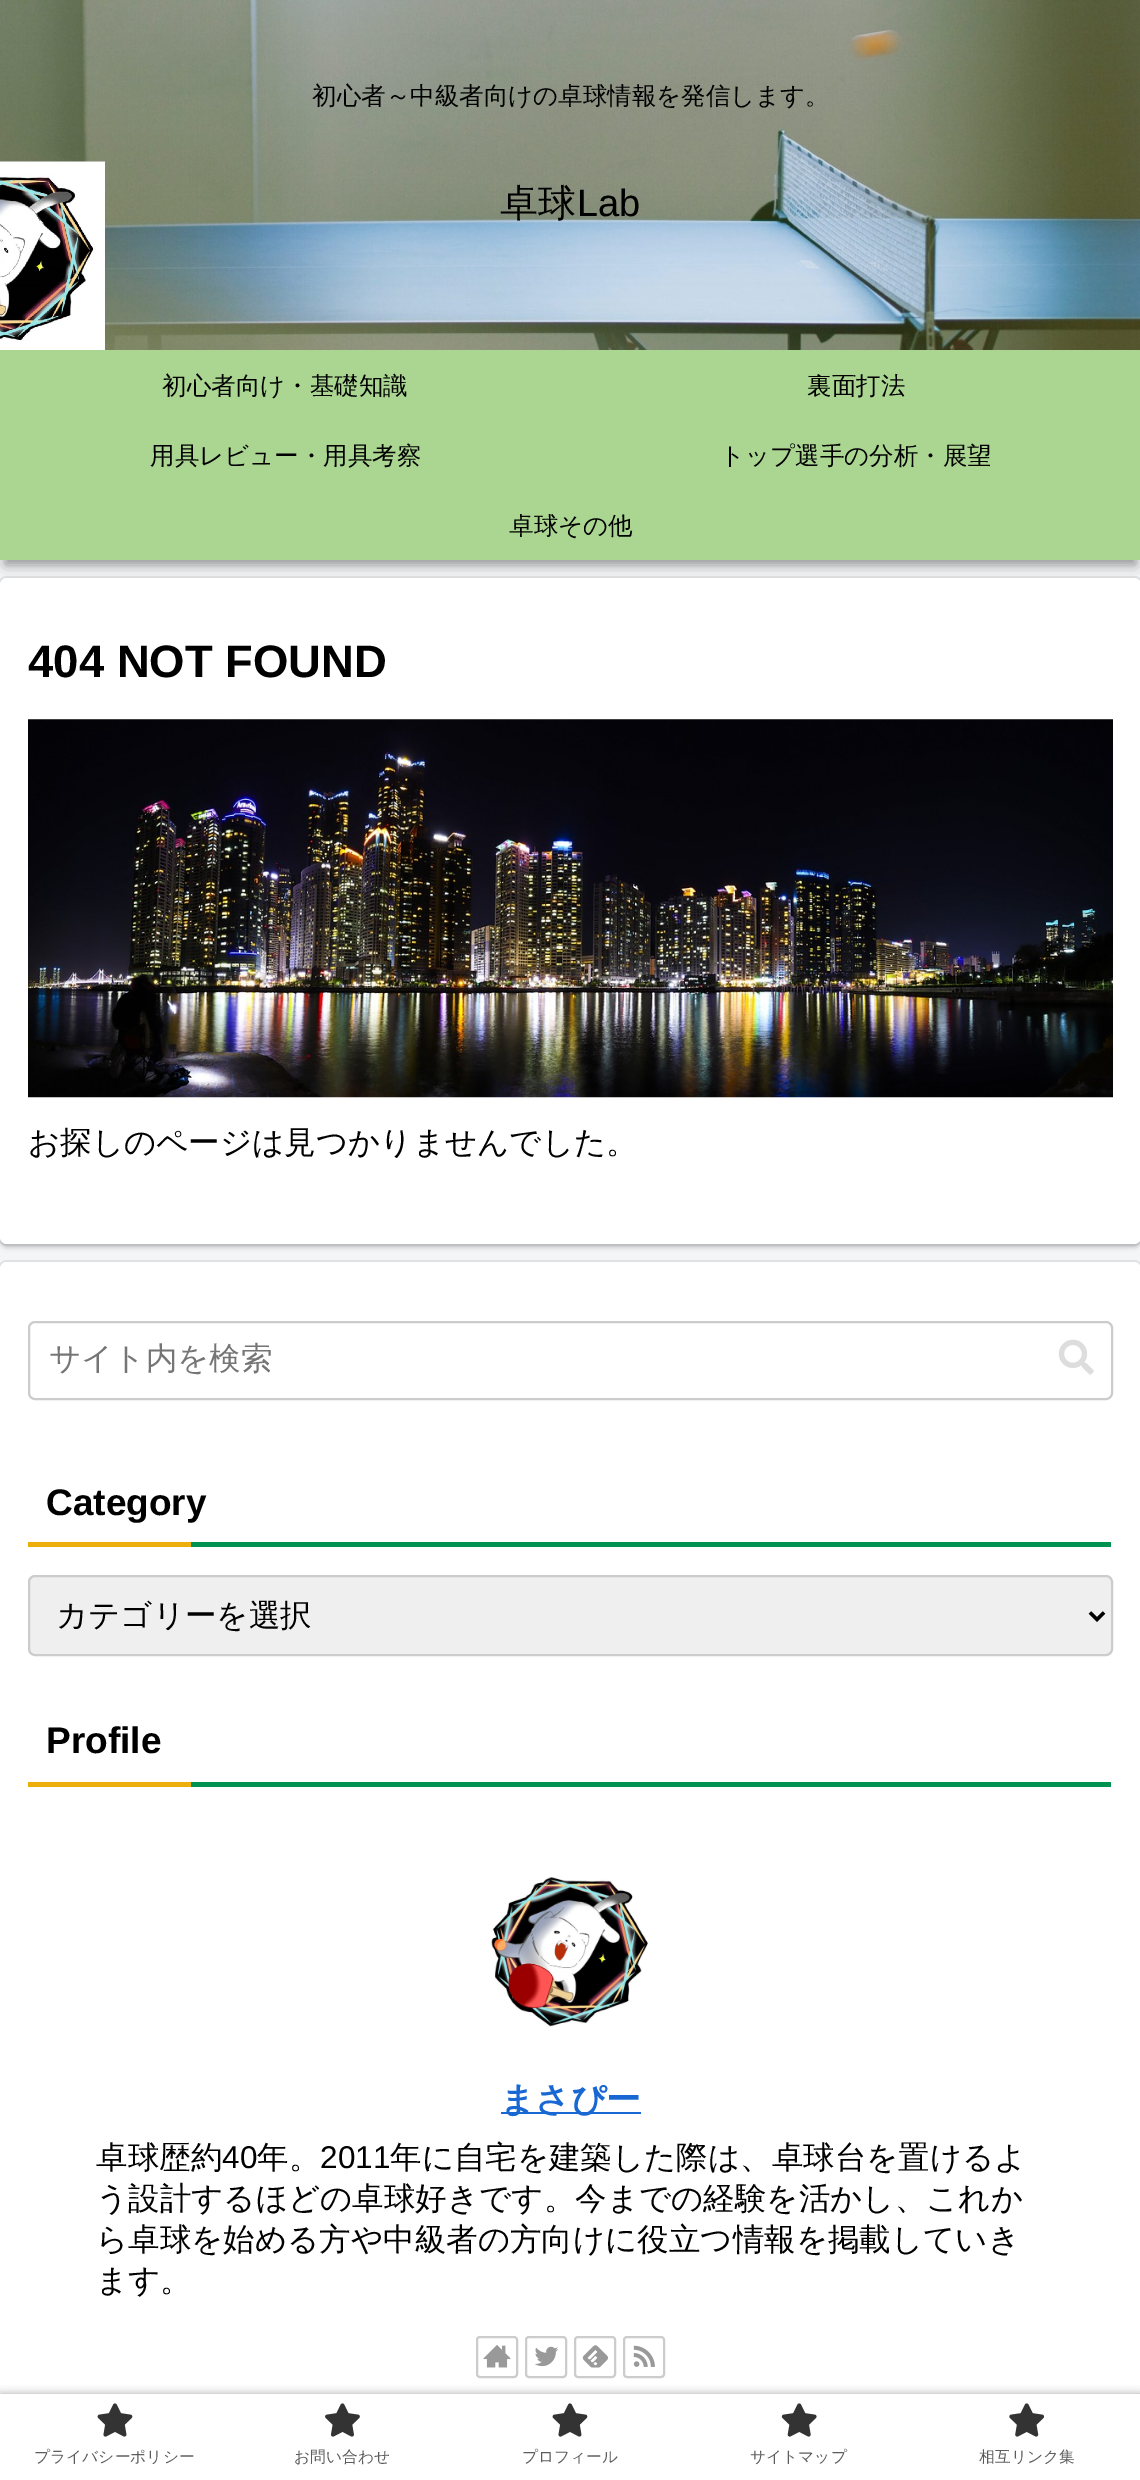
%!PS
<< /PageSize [1140 2480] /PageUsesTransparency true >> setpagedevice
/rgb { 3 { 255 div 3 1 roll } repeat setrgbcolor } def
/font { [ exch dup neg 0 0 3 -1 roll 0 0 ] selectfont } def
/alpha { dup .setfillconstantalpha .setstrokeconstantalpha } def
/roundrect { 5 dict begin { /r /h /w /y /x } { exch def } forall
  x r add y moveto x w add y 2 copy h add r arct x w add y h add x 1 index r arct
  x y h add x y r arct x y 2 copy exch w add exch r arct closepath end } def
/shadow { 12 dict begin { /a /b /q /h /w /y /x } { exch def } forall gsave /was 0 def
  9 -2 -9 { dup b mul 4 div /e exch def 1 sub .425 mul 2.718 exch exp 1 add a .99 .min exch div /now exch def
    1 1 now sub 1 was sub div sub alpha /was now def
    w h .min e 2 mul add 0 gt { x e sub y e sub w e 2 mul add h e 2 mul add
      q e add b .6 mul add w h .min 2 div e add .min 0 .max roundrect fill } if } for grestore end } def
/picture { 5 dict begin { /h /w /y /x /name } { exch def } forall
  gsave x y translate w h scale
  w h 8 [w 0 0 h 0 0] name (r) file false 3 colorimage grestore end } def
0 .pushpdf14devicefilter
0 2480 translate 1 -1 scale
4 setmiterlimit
244 245 247 rgb
0 0 1140 2480 rectfill
0 0 0 rgb
5 16 1131 549 0 9 0.18 shadow
5 16 1131 549 0 4.5 0.24 shadow
(img/1.rgb) 0 0 1140 350 picture
170 214 145 rgb
0 350 1140 210 rectfill
0.08 alpha
0 0 0 rgb
2 setlinewidth
-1 577 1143 668 8 roundrect stroke
1 alpha
0 581 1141 667 7 2 0.16 shadow
255 255 255 rgb
0 578 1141 666 7 roundrect fill
(img/2.rgb) 28 719 1085 379 picture
224 225 227 rgb
-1 1261 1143 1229 8 roundrect stroke
255 255 255 rgb
0 1262 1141 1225 7 roundrect fill
204 204 204 rgb
29 1322 1083 77 6 roundrect stroke
(img/3.rgb) 1058 1339 36 36 picture
0 146 80 rgb
191 1542 920 5 rectfill
237 173 11 rgb
28 1542 163 5 rectfill
239 239 239 rgb
29 1576 1083 79 6 roundrect gsave fill grestore
204 204 204 rgb
stroke
0 0 0 rgb
3.5 setlinewidth
1090 1612.5 moveto 1097 1619.5 lineto 1104 1612.5 lineto stroke
0 146 80 rgb
191 1782 920 5 rectfill
237 173 11 rgb
28 1782 163 5 rectfill
(img/4.rgb) 491 1876 157 151 picture
25 103 210 rgb
501 2112 140 2 rectfill
204 204 204 rgb
2 setlinewidth
477 2337 40 40 3 roundrect stroke
(img/5.rgb) 483 2345 28 23 picture
526 2337 40 40 3 roundrect stroke
(img/6.rgb) 535 2346 24 21 picture
575 2337 40 40 3 roundrect stroke
(img/7.rgb) 582 2345 26 23 picture
624 2337 40 40 3 roundrect stroke
(img/8.rgb) 633 2345 22 22 picture
gsave
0 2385 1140 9 rectclip
169 169 169 rgb
0 2394 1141 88 0 4.5 1 shadow
grestore
(img/9.rgb) 97 2403 36 34 picture
(img/10.rgb) 325 2403 35 34 picture
(img/9.rgb) 552 2403 36 34 picture
(img/11.rgb) 781 2403 36 34 picture
(img/12.rgb) 1009 2403 36 34 picture
/WenQuanYiZenHei-Medium 24.5 font
0 0 0 rgb
312 104 moveto (初心者～中級者向けの卓球情報を発信します。) show
/WenQuanYiZenHei-Medium 38 font
500 216 moveto (卓球) show
/LiberationSans-Regular 38 font
577 216 moveto (Lab) show
/WenQuanYiZenHei-Medium 24.5 font
[
  [(初心者向け・基礎知識) 162 394]
  [(裏面打法) 807 394]
  [(用具レビュー・用具考察) 150 464]
  [(トップ選手の分析・展望) 720 464]
  [(卓球その他) 509 534]
] { aload pop moveto show } forall
/LiberationSans-Bold 45.5 font
28 677 moveto (404 NOT FOUND) show
/WenQuanYiZenHei-Medium 31.5 font
28 1153 moveto (お探しのページは見つかりませんでした。) show
117 117 117 rgb
49 1369 moveto (サイト内を検索) show
/LiberationSans-Bold 37 font
0 0 0 rgb
46 1515 moveto (Category) show
/WenQuanYiZenHei-Medium 31.5 font
56 1626 moveto (カテゴリーを選択) show
/LiberationSans-Bold 37 font
46 1753 moveto (Profile) show
/WenQuanYiZenHei-Bold 34.5 font
25 103 210 rgb
500 2111 moveto (まさぴー) show
/WenQuanYiZenHei-Medium 31.5 font
0 0 0 rgb
96 2168 moveto (卓球歴約) show
/LiberationSans-Regular 31.5 font
222 2168 moveto (40) show
/WenQuanYiZenHei-Medium 31.5 font
257 2168 moveto (年。) show
/LiberationSans-Regular 31.5 font
320 2168 moveto (2011) show
/WenQuanYiZenHei-Medium 31.5 font
[
  [(年に自宅を建築した際は、卓球台を置けるよ) 390 2168]
  [(う設計するほどの卓球好きです。今までの経験を活かし、これか) 96 2209]
  [(ら卓球を始める方や中級者の方向けに役立つ情報を掲載していき) 96 2250]
  [(ます。) 96 2291]
] { aload pop moveto show } forall
/WenQuanYiZenHei-Medium 15.75 font
92 92 92 rgb
[
  [(プライバシーポリシー) 34 2462]
  [(お問い合わせ) 294 2462]
  [(プロフィール) 522 2462]
  [(サイトマップ) 750 2462]
  [(相互リンク集) 979 2462]
] { aload pop moveto show } forall
.poppdf14devicefilter showpage
